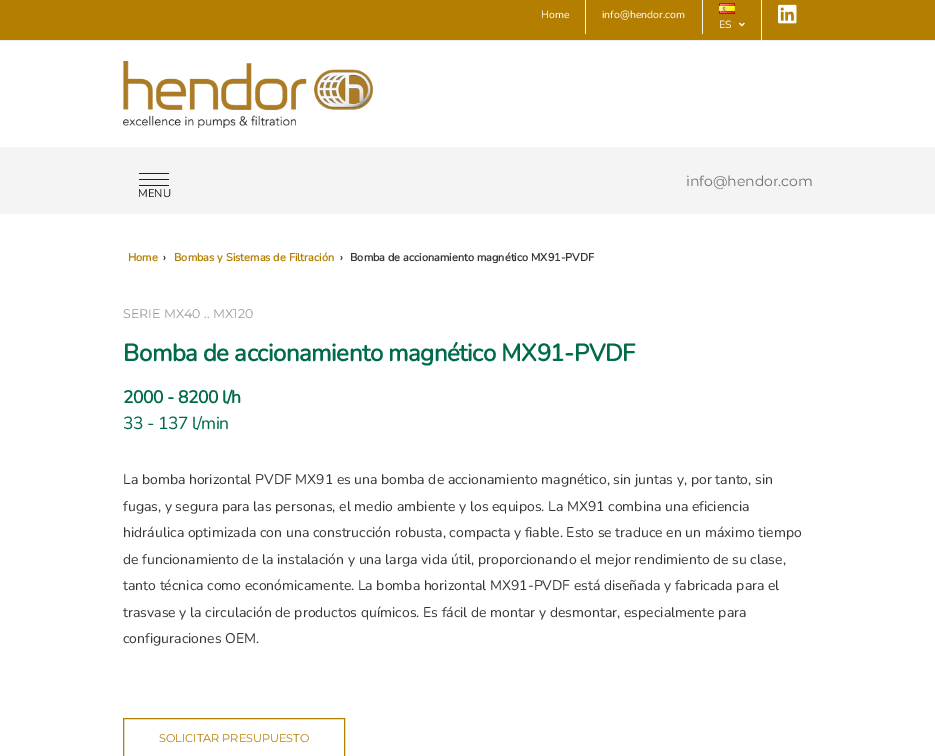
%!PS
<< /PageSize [935 756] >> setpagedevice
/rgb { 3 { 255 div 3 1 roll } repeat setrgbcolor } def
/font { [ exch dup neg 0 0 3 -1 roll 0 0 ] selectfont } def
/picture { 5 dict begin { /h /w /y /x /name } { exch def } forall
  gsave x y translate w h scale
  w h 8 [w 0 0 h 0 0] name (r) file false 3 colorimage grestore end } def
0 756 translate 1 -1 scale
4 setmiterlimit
255 255 255 rgb
0 0 935 756 rectfill
[
  [0 0 935 40 180 127 0]
  [0 40 935 1 237 237 238]
  [585 0 1 34 244 244 244]
  [702 0 1 34 244 244 244]
] { aload pop rgb rectfill } forall
(img/1.rgb) 778 4 19 20 picture
761 0 1 44 rectfill
(img/2.rgb) 719 3 16 11 picture
(img/3.rgb) 739 22 6 5 picture
(img/4.rgb) 123 61 250 67 picture
[
  [1 147 934 1 245 245 245]
  [0 148 935 66 244 244 244]
  [139 173 30 1 28 31 33]
  [139 179 30 1 28 31 33]
  [139 185 30 1 28 31 33]
] { aload pop rgb rectfill } forall
180 127 0 rgb
123.5 718.5 221 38 rectstroke
/Nunito-ExtraLight 10.5 font
255 255 255 rgb
[
  [(Home) 541 18]
  [(info@hendor.com) 602 18]
  [(ES) 719 28]
] { aload pop moveto show } forall
/Montserrat-Regular 14 font
112 112 112 rgb
686 186 moveto (info@hendor.com) show
/Nunito-ExtraLight 11.25 font
28 31 33 rgb
138 197 moveto (MENU) show
/Nunito-Bold 11 font
180 127 0 rgb
128 261 moveto (Home) show
55 51 51 rgb
163 261 moveto (›) show
180 127 0 rgb
174 261 moveto (Bombas y Sistemas de Filtración) show
55 51 51 rgb
340 261 moveto (›) show
350 261 moveto (Bomba de accionamiento magnético MX91-PVDF) show
/Montserrat-Regular 12.6 font
153 153 153 rgb
123 318 moveto (SERIE MX40 .. MX120) show
/Nunito-Bold 24 font
0 106 76 rgb
123 361 moveto -0.5 0 (Bomba de accionamiento magnético MX91-PVDF) ashow
/Nunito-Bold 17.5 font
123 403 moveto -0.5 0 (2000 - 8200 l/h) ashow
/Nunito-ExtraLight 17.5 font
123 429 moveto -0.5 0 (33 - 137 l/min) ashow
/Nunito-ExtraLight 14 font
55 51 51 rgb
[
  [(La bomba horizontal PVDF MX91 es una bomba de accionamiento magnético, sin juntas y, por tanto, sin) 123 484]
  [(fugas, y segura para las personas, el medio ambiente y los equipos. La MX91 combina una eficiencia) 123 511]
  [(hidráulica optimizada con una construcción robusta, compacta y fiable. Esto se traduce en un máximo tiempo) 123 537]
  [(de funcionamiento de la instalación y una larga vida útil, proporcionando el mejor rendimiento de su clase,) 123 564]
  [(tanto técnica como económicamente. La bomba horizontal MX91-PVDF está diseñada y fabricada para el) 123 590]
  [(trasvase y la circulación de productos químicos. Es fácil de montar y desmontar, especialmente para) 123 617]
  [(configuraciones OEM.) 123 643]
] { aload pop moveto show } forall
/Montserrat-Regular 11.25 font
180 127 0 rgb
159 742 moveto (SOLICITAR PRESUPUESTO) show
showpage
